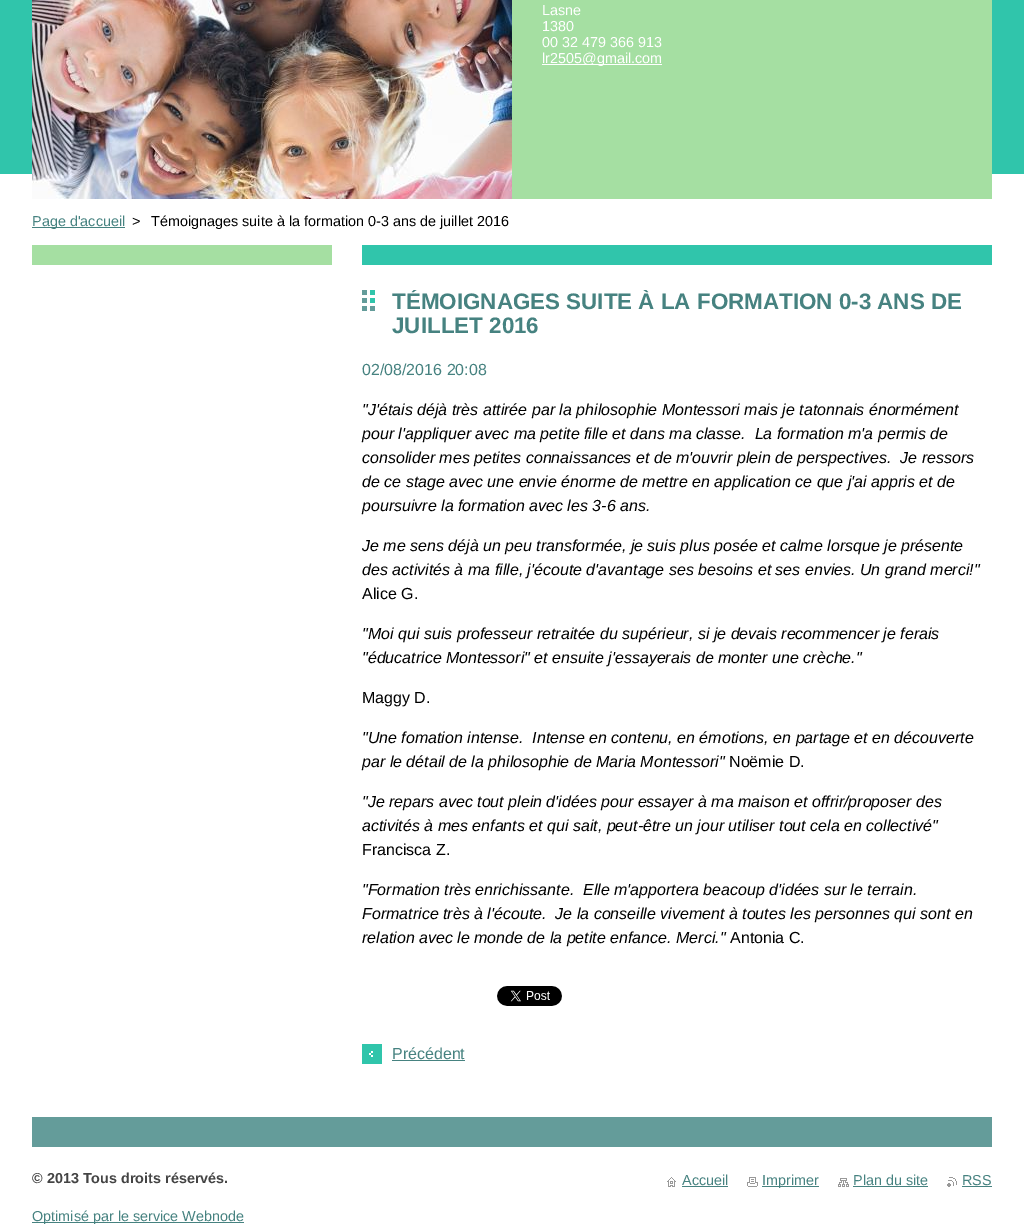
%!PS
<< /PageSize [1024 1231] >> setpagedevice
/rgb { 3 { 255 div 3 1 roll } repeat setrgbcolor } def
/font { [ exch dup neg 0 0 3 -1 roll 0 0 ] selectfont } def
/picture { 5 dict begin { /h /w /y /x /name } { exch def } forall
  gsave x y translate w h scale
  w h 8 [w 0 0 h 0 0] name (r) file false 3 colorimage grestore end } def
0 1231 translate 1 -1 scale
4 setmiterlimit
255 255 255 rgb
0 0 1024 1231 rectfill
48 197 171 rgb
0 0 1024 174 rectfill
(img/1.rgb) 32 0 480 199 picture
[
  [512 0 480 199 165 223 162]
  [542 64 120 1 255 255 255]
  [32 227 93 1 70 130 128]
  [32 245 300 20 165 223 162]
  [362 245 630 20 48 197 171]
] { aload pop rgb rectfill } forall
(img/2.rgb) 362 290 13 21 picture
(img/3.rgb) 497 986 65 20 picture
(img/4.rgb) 362 1044 20 20 picture
[
  [392 1060 73 1 70 130 128]
  [32 1117 960 30 100 156 154]
  [32 1222 212 1 70 130 128]
] { aload pop rgb rectfill } forall
(img/5.rgb) 667 1177 9 10 picture
682 1186 46 1 rectfill
(img/6.rgb) 747 1177 11 10 picture
762 1186 57 1 rectfill
(img/7.rgb) 838 1178 11 9 picture
853 1186 75 1 rectfill
(img/8.rgb) 947 1177 10 10 picture
962 1186 30 1 rectfill
/LiberationSans-Regular 14.4 font
255 255 255 rgb
[
  [(Lasne) 542 15]
  [(1380) 542 31]
  [(00 32 479 366 913) 542 47]
  [(lr2505@gmail.com) 542 63]
] { aload pop moveto show } forall
70 130 128 rgb
32 226 moveto (Page d'accueil) show
0 0 0 rgb
132 226 moveto (>) show
151 226 moveto (Témoignages suite à la formation 0-3 ans de juillet 2016) show
gsave
362 290 630 784 rectclip
/LiberationSans-Bold 22.4 font
70 130 128 rgb
392 309 moveto (TÉMOIGNAGES SUITE À LA FORMATION 0-3 ANS DE) show
grestore
/LiberationSans-Bold 22.4 font
70 130 128 rgb
392 333 moveto (JUILLET 2016) show
/LiberationSans-Regular 16 font
362 375 moveto (02/08/2016 20:08) show
/LiberationSans-Italic 16 font
0 0 0 rgb
[
  [("J'étais déjà très attirée par la philosophie Montessori mais je tatonnais énormément) 362 415]
  [(pour l'appliquer avec ma petite fille et dans ma classe.  La formation m'a permis de) 362 439]
  [(consolider mes petites connaissances et de m'ouvrir plein de perspectives.  Je ressors) 362 463]
  [(de ce stage avec une envie énorme de mettre en application ce que j'ai appris et de) 362 487]
  [(poursuivre la formation avec les 3-6 ans.) 362 511]
  [(Je me sens déjà un peu transformée, je suis plus posée et calme lorsque je présente) 362 551]
  [(des activités à ma fille, j'écoute d'avantage ses besoins et ses envies. Un grand merci!") 362 575]
] { aload pop moveto show } forall
/LiberationSans-Regular 16 font
362 599 moveto (Alice G.) show
/LiberationSans-Italic 16 font
362 639 moveto ("Moi qui suis professeur retraitée du supérieur, si je devais recommencer je ferais) show
362 663 moveto ("éducatrice Montessori" et ensuite j'essayerais de monter une crèche.") show
/LiberationSans-Regular 16 font
362 703 moveto (Maggy D.) show
/LiberationSans-Italic 16 font
362 743 moveto ("Une fomation intense.  Intense en contenu, en émotions, en partage et en découverte) show
362 767 moveto (par le détail de la philosophie de Maria Montessori") show
/LiberationSans-Regular 16 font
729 767 moveto (Noëmie D.) show
/LiberationSans-Italic 16 font
362 807 moveto ("Je repars avec tout plein d'idées pour essayer à ma maison et offrir/proposer des) show
362 831 moveto (activités à mes enfants et qui sait, peut-être un jour utiliser tout cela en collectivé") show
/LiberationSans-Regular 16 font
362 855 moveto (Francisca Z.) show
/LiberationSans-Italic 16 font
[
  [("Formation très enrichissante.  Elle m'apportera beacoup d'idées sur le terrain.) 362 895]
  [(Formatrice très à l'écoute.  Je la conseille vivement à toutes les personnes qui sont en) 362 919]
  [(relation avec le monde de la petite enfance. Merci.") 362 943]
] { aload pop moveto show } forall
/LiberationSans-Regular 16 font
730 943 moveto (Antonia C.) show
70 130 128 rgb
392 1059 moveto (Précédent) show
/LiberationSans-Bold 14.4 font
68 68 68 rgb
32 1183 moveto (© 2013 Tous droits réservés.) show
/LiberationSans-Regular 14.4 font
70 130 128 rgb
[
  [(Optimisé par le service Webnode) 32 1221]
  [(Accueil) 682 1185]
  [(Imprimer) 762 1185]
  [(Plan du site) 853 1185]
  [(RSS) 962 1185]
] { aload pop moveto show } forall
showpage
